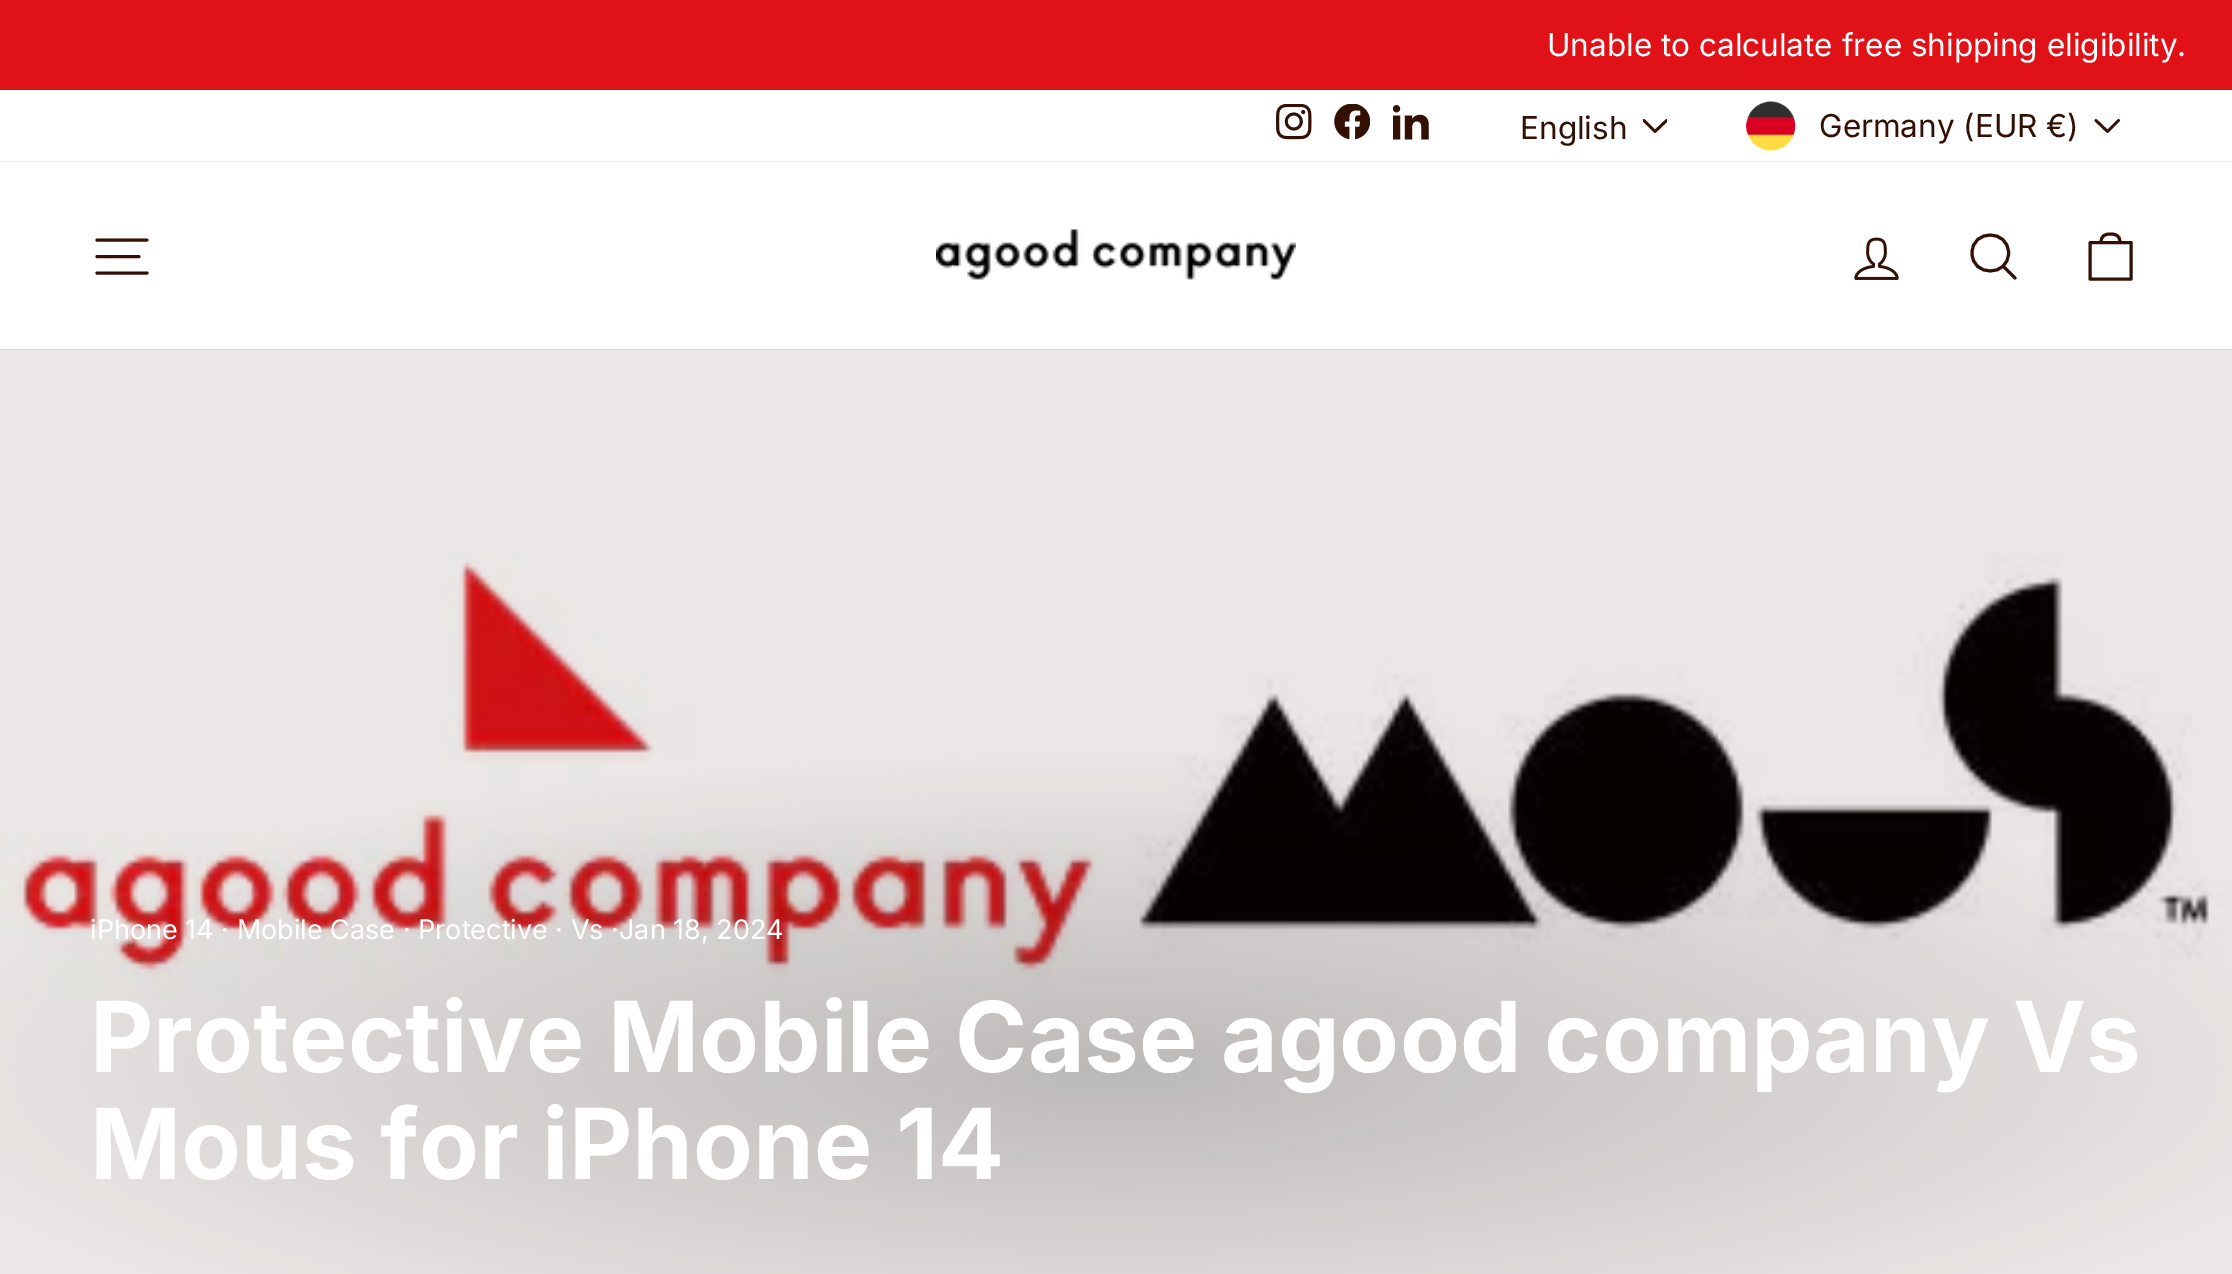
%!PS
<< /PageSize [2232 1274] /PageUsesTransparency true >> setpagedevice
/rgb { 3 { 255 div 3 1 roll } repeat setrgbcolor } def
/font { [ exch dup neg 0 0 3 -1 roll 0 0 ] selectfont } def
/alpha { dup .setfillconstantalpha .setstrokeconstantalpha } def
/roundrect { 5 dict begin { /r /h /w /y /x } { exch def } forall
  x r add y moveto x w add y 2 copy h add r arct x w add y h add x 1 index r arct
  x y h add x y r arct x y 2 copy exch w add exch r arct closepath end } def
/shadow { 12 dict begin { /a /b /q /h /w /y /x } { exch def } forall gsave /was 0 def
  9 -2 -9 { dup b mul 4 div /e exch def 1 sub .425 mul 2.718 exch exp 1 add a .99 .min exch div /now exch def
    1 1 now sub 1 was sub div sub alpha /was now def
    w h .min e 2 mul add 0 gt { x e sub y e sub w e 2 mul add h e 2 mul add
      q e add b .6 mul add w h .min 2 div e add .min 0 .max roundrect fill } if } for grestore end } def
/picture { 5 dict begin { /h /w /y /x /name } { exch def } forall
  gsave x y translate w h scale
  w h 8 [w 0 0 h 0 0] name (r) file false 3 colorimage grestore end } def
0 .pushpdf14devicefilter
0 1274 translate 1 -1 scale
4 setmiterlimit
255 255 255 rgb
0 0 2232 1274 rectfill
224 18 23 rgb
0 0 2232 90 rectfill
(img/1.rgb) 1276 104 36 36 picture
(img/2.rgb) 1334 104 36 36 picture
(img/3.rgb) 1393 105 36 35 picture
gsave
1643 115 24 25 rectclip
50 16 4 rgb
2.7 setlinewidth
1 setlinecap
1 setlinejoin
1644 120.5 moveto 1655 131.5 lineto 1666.5 120.5 lineto stroke
grestore
(img/4.rgb) 1746 101 50 50 picture
50 16 4 rgb
2.7 setlinewidth
1 setlinecap
1 setlinejoin
2096 120.5 moveto 2107.5 131.5 lineto 2118.5 120.5 lineto stroke
(img/7.rgb) 0 349 2232 925 picture
0 0 0 rgb
0 162 2232 187 0 1 0.2 shadow
255 255 255 rgb
0 162 2232 187 rectfill
50 16 4 rgb
3 setlinewidth
97 240 moveto 147 240 lineto 97 256.5 moveto 139 256.5 lineto 97 273 moveto 147 273 lineto stroke
(img/5.rgb) 936 229 360 51 picture
(img/6.rgb) 1854 237 45 43 picture
2008.5 253 moveto 2008.5 277 1972 277 1972 253 curveto 1972 229 2008.5 229 2008.5 253 curveto closepath 2015 278 moveto 2003.5 266.5 lineto stroke
2090 242.5 moveto 2131 242.5 lineto 2131 279 lineto 2090 279 lineto closepath 2101 242.5 moveto 2101 235.5 2105 234 2110.5 234 curveto 2116 234 2120 235.5 2120 242.5 curveto stroke
/Inter-Regular 31.5 font
255 255 255 rgb
1547 56 moveto (Unable to calculate free shipping eligibility.) show
50 16 4 rgb
1520 139 moveto (English) show
1819 137 moveto (Germany \(EUR €\)) show
/Inter-Regular 27 font
255 255 255 rgb
90 939 moveto (iPhone 14 · Mobile Case · Protective · Vs ·Jan 18, 2024) show
/Inter-Bold 97.9 font
90 1072 moveto (Protective Mobile Case agood company Vs) show
90 1179 moveto (Mous for iPhone 14) show
.poppdf14devicefilter showpage
